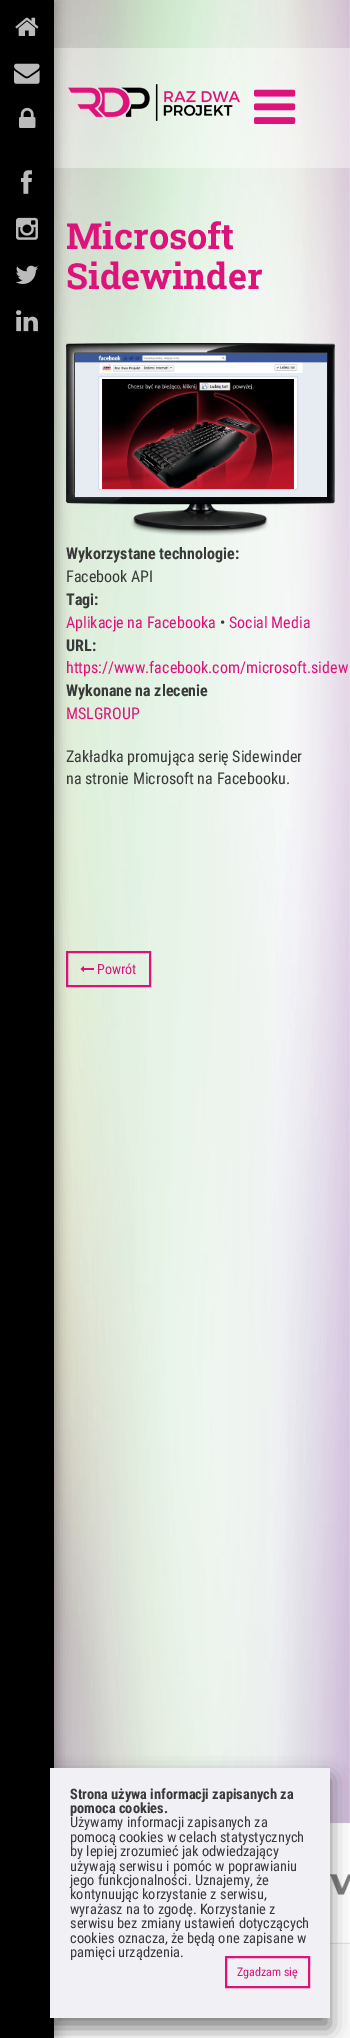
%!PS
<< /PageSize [350 2038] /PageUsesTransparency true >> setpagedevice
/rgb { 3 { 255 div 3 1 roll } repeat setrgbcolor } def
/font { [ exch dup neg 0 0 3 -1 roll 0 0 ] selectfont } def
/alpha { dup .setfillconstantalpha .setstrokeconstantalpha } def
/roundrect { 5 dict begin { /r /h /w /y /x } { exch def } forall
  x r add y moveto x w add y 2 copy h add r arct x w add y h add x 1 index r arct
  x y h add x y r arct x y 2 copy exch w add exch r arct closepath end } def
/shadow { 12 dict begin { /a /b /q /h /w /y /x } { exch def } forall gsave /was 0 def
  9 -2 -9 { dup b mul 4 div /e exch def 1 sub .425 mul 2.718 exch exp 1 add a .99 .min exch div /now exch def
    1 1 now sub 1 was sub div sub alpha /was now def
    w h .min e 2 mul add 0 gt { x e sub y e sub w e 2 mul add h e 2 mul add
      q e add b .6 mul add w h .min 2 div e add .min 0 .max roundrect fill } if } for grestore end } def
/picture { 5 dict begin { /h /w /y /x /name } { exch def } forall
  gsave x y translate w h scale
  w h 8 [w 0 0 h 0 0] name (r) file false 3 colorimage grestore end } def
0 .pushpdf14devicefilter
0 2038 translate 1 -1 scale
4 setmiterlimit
255 255 255 rgb
0 0 350 2038 rectfill
(img/1.rgb) 54 0 296 1823 picture
0.4 alpha
54 48 296 120 rectfill
1 alpha
(img/9.rgb) 68 84 172 37 picture
(img/11.rgb) 66 343 269 193 picture
231 235 242 rgb
75 373 252 124 rectfill
(img/12.rgb) 75 353 252 20 picture
221 19 123 rgb
2 setlinewidth
67 952 83 34 rectstroke
250 250 250 rgb
54 1944 296 94 rectfill
0 0 0 rgb
4 0 54 2038 0 6 0.25 shadow
0 0 54 2038 rectfill
(img/2.rgb) 15 17 24 19 picture
(img/3.rgb) 14 63 26 21 picture
(img/4.rgb) 19 107 17 21 picture
(img/5.rgb) 21 170 11 24 picture
(img/6.rgb) 16 217 22 23 picture
(img/7.rgb) 16 265 22 19 picture
(img/8.rgb) 16 310 22 22 picture
(img/10.rgb) 254 89 42 35 picture
255 255 255 rgb
98.5 376.5 199 113 1.5 roundrect gsave fill grestore
215 221 234 rgb
1 setlinewidth
stroke
(img/13.rgb) 102 379 192 110 picture
(img/14.rgb) 80 966 14 6 picture
250 250 250 rgb
330 1823 20 1 rectfill
330 1942 20 1 rectfill
(img/15.rgb) 330 1874 20 21 picture
228 228 228 rgb
330 1943 20 1 rectfill
0 0 0 rgb
50 1778 280 250 0 10 0.5 shadow
240 240 245 rgb
50 1768 280 250 rectfill
221 19 123 rgb
2 setlinewidth
226 1957 83 30 rectstroke
/RobotoSlab-Bold 36 font
66 249 moveto (Microsoft) show
66 289 moveto (Sidewinder) show
/RobotoCondensed-Bold 16 font
57 57 57 rgb
66 559 moveto (Wykorzystane technologie:) show
/RobotoCondensed-Regular 16 font
66 582 moveto (Facebook API) show
/RobotoCondensed-Bold 16 font
66 605 moveto (Tagi:) show
/RobotoCondensed-Regular 16 font
221 19 123 rgb
66 628 moveto (Aplikacje na Facebooka) show
57 57 57 rgb
220 628 moveto (•) show
221 19 123 rgb
229 628 moveto (Social Media) show
/RobotoCondensed-Bold 16 font
57 57 57 rgb
66 651 moveto (URL:) show
/RobotoCondensed-Regular 16 font
221 19 123 rgb
66 673 moveto (https://www.facebook.com/microsoft.sidew) show
/RobotoCondensed-Bold 16 font
57 57 57 rgb
66 696 moveto (Wykonane na zlecenie) show
/RobotoCondensed-Regular 16 font
221 19 123 rgb
66 719 moveto (MSLGROUP) show
57 57 57 rgb
66 762 moveto (Zakładka promująca serię Sidewinder) show
66 784 moveto (na stronie Microsoft na Facebooku.) show
/RobotoCondensed-Regular 14 font
221 19 123 rgb
97 974 moveto (Powrót) show
/RobotoCondensed-Bold 14.4 font
57 57 57 rgb
70 1799 moveto (Strona używa informacji zapisanych za) show
70 1813 moveto (pomoca cookies.) show
/RobotoCondensed-Regular 14.4 font
[
  [(Używamy informacji zapisanych za) 70 1827]
  [(pomocą cookies w celach statystycznych) 70 1842]
  [(by lepiej zrozumieć jak odwiedzający) 70 1856]
  [(używają serwisu i pomóc w poprawianiu) 70 1871]
  [(jego funkcjonalności. Uznajemy, że) 70 1885]
  [(kontynuując korzystanie z serwisu,) 70 1899]
  [(wyrażasz na to zgodę. Korzystanie z) 70 1914]
  [(serwisu bez zmiany ustawień dotyczących) 70 1928]
  [(cookies oznacza, że będą one zapisane w) 70 1943]
  [(pamięci urządzenia.) 70 1957]
] { aload pop moveto show } forall
/RobotoCondensed-Regular 12 font
221 19 123 rgb
237 1976 moveto (Zgadzam się) show
.poppdf14devicefilter showpage
